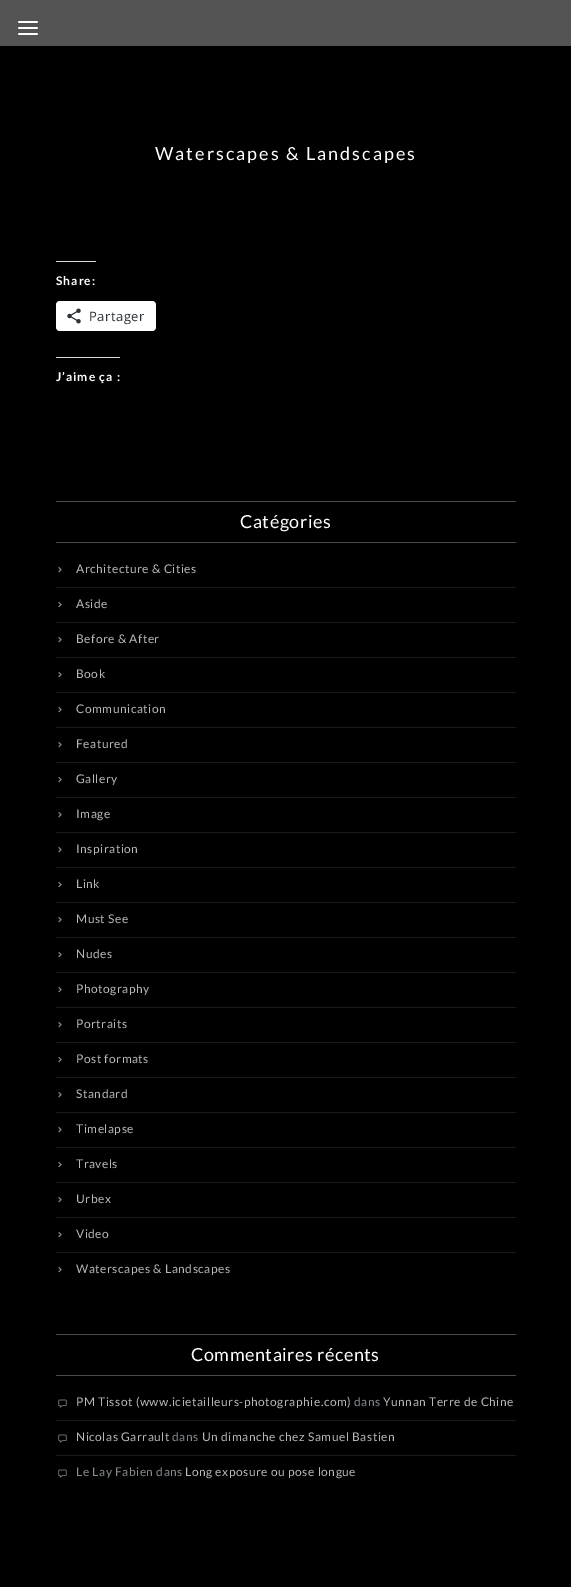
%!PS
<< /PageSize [571 1587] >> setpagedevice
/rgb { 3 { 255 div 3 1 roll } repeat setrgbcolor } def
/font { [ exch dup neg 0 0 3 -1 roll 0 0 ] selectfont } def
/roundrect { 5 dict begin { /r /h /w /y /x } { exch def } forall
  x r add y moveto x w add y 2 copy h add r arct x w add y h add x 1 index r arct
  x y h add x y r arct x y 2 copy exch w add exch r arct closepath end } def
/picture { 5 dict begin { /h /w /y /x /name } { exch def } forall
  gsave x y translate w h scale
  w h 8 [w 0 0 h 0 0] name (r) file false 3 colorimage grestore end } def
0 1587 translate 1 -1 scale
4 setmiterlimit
0 0 0 rgb
0 0 571 1587 rectfill
84 84 84 rgb
0 0 571 46 rectfill
(img/1.rgb) 18 21 20 14 picture
220 220 222 rgb
56 261 40 1 rectfill
255 255 255 rgb
56 301 100 30 4 roundrect fill
(img/2.rgb) 67 308 14 16 picture
[
  [56 357 64 1 220 220 222]
  [56 501 460 1 77 77 77]
  [56 542 460 1 77 77 77]
] { aload pop rgb rectfill } forall
(img/3.rgb) 58 567 4 6 picture
26 26 26 rgb
56 587 460 1 rectfill
(img/3.rgb) 58 602 4 6 picture
56 622 460 1 rectfill
(img/3.rgb) 58 637 4 6 picture
56 657 460 1 rectfill
(img/3.rgb) 58 672 4 6 picture
56 692 460 1 rectfill
(img/3.rgb) 58 707 4 6 picture
56 727 460 1 rectfill
(img/3.rgb) 58 742 4 6 picture
56 762 460 1 rectfill
(img/3.rgb) 58 777 4 6 picture
56 797 460 1 rectfill
(img/3.rgb) 58 812 4 6 picture
56 832 460 1 rectfill
(img/3.rgb) 58 847 4 6 picture
56 867 460 1 rectfill
(img/3.rgb) 58 882 4 6 picture
56 902 460 1 rectfill
(img/3.rgb) 58 917 4 6 picture
56 937 460 1 rectfill
(img/3.rgb) 58 952 4 6 picture
56 972 460 1 rectfill
(img/3.rgb) 58 987 4 6 picture
56 1007 460 1 rectfill
(img/3.rgb) 58 1022 4 6 picture
56 1042 460 1 rectfill
(img/3.rgb) 58 1057 4 6 picture
56 1077 460 1 rectfill
(img/3.rgb) 58 1092 4 6 picture
56 1112 460 1 rectfill
(img/3.rgb) 58 1127 4 6 picture
56 1147 460 1 rectfill
(img/3.rgb) 58 1162 4 6 picture
56 1182 460 1 rectfill
(img/3.rgb) 58 1197 4 6 picture
56 1217 460 1 rectfill
(img/3.rgb) 58 1232 4 6 picture
56 1252 460 1 rectfill
(img/3.rgb) 58 1267 4 6 picture
77 77 77 rgb
56 1334 460 1 rectfill
56 1375 460 1 rectfill
(img/4.rgb) 58 1399 9 9 picture
26 26 26 rgb
56 1420 460 1 rectfill
(img/4.rgb) 58 1434 9 9 picture
56 1455 460 1 rectfill
(img/4.rgb) 58 1469 9 9 picture
/Lato-Regular 18 font
255 255 255 rgb
155 160 moveto 2 0 (Waterscapes & Landscapes) ashow
/Lato-Bold 12 font
56 285 moveto 1 0 (Share:) ashow
/OpenSans-Regular 13 font
44 51 56 rgb
89 321 moveto 0.5 0 (Partager) ashow
/Lato-Bold 12 font
255 255 255 rgb
56 381 moveto 1 0 (J’aime ça :) ashow
/Lato-Regular 18 font
240 528 moveto 0.5 0 (Catégories) ashow
/Lato-Regular 12 font
184 184 184 rgb
76 573 moveto 0.5 0 (Architecture & Cities) ashow
76 608 moveto 0.5 0 (Aside) ashow
76 643 moveto 0.5 0 (Before & After) ashow
76 678 moveto 0.5 0 (Book) ashow
76 713 moveto 0.5 0 (Communication) ashow
76 748 moveto 0.5 0 (Featured) ashow
76 783 moveto 0.5 0 (Gallery) ashow
76 818 moveto 0.5 0 (Image) ashow
76 853 moveto 0.5 0 (Inspiration) ashow
76 888 moveto 0.5 0 (Link) ashow
76 923 moveto 0.5 0 (Must See) ashow
76 958 moveto 0.5 0 (Nudes) ashow
76 993 moveto 0.5 0 (Photography) ashow
76 1028 moveto 0.5 0 (Portraits) ashow
76 1063 moveto 0.5 0 (Post formats) ashow
76 1098 moveto 0.5 0 (Standard) ashow
76 1133 moveto 0.5 0 (Timelapse) ashow
76 1168 moveto 0.5 0 (Travels) ashow
76 1203 moveto 0.5 0 (Urbex) ashow
76 1238 moveto 0.5 0 (Video) ashow
76 1273 moveto 0.5 0 (Waterscapes & Landscapes) ashow
/Lato-Regular 18 font
255 255 255 rgb
191 1361 moveto 0.5 0 (Commentaires récents) ashow
/Lato-Regular 12 font
184 184 184 rgb
76 1406 moveto 0.5 0 (PM Tissot \(www.icietailleurs-photographie.com\)) ashow
133 141 146 rgb
354 1406 moveto 0.5 0 (dans) ashow
184 184 184 rgb
383 1406 moveto 0.5 0 (Yunnan Terre de Chine) ashow
76 1441 moveto 0.5 0 (Nicolas Garrault) ashow
133 141 146 rgb
172 1441 moveto 0.5 0 (dans) ashow
184 184 184 rgb
202 1441 moveto 0.5 0 (Un dimanche chez Samuel Bastien) ashow
133 141 146 rgb
76 1476 moveto 0.5 0 (Le Lay Fabien dans) ashow
184 184 184 rgb
185 1476 moveto 0.5 0 (Long exposure ou pose longue) ashow
showpage
